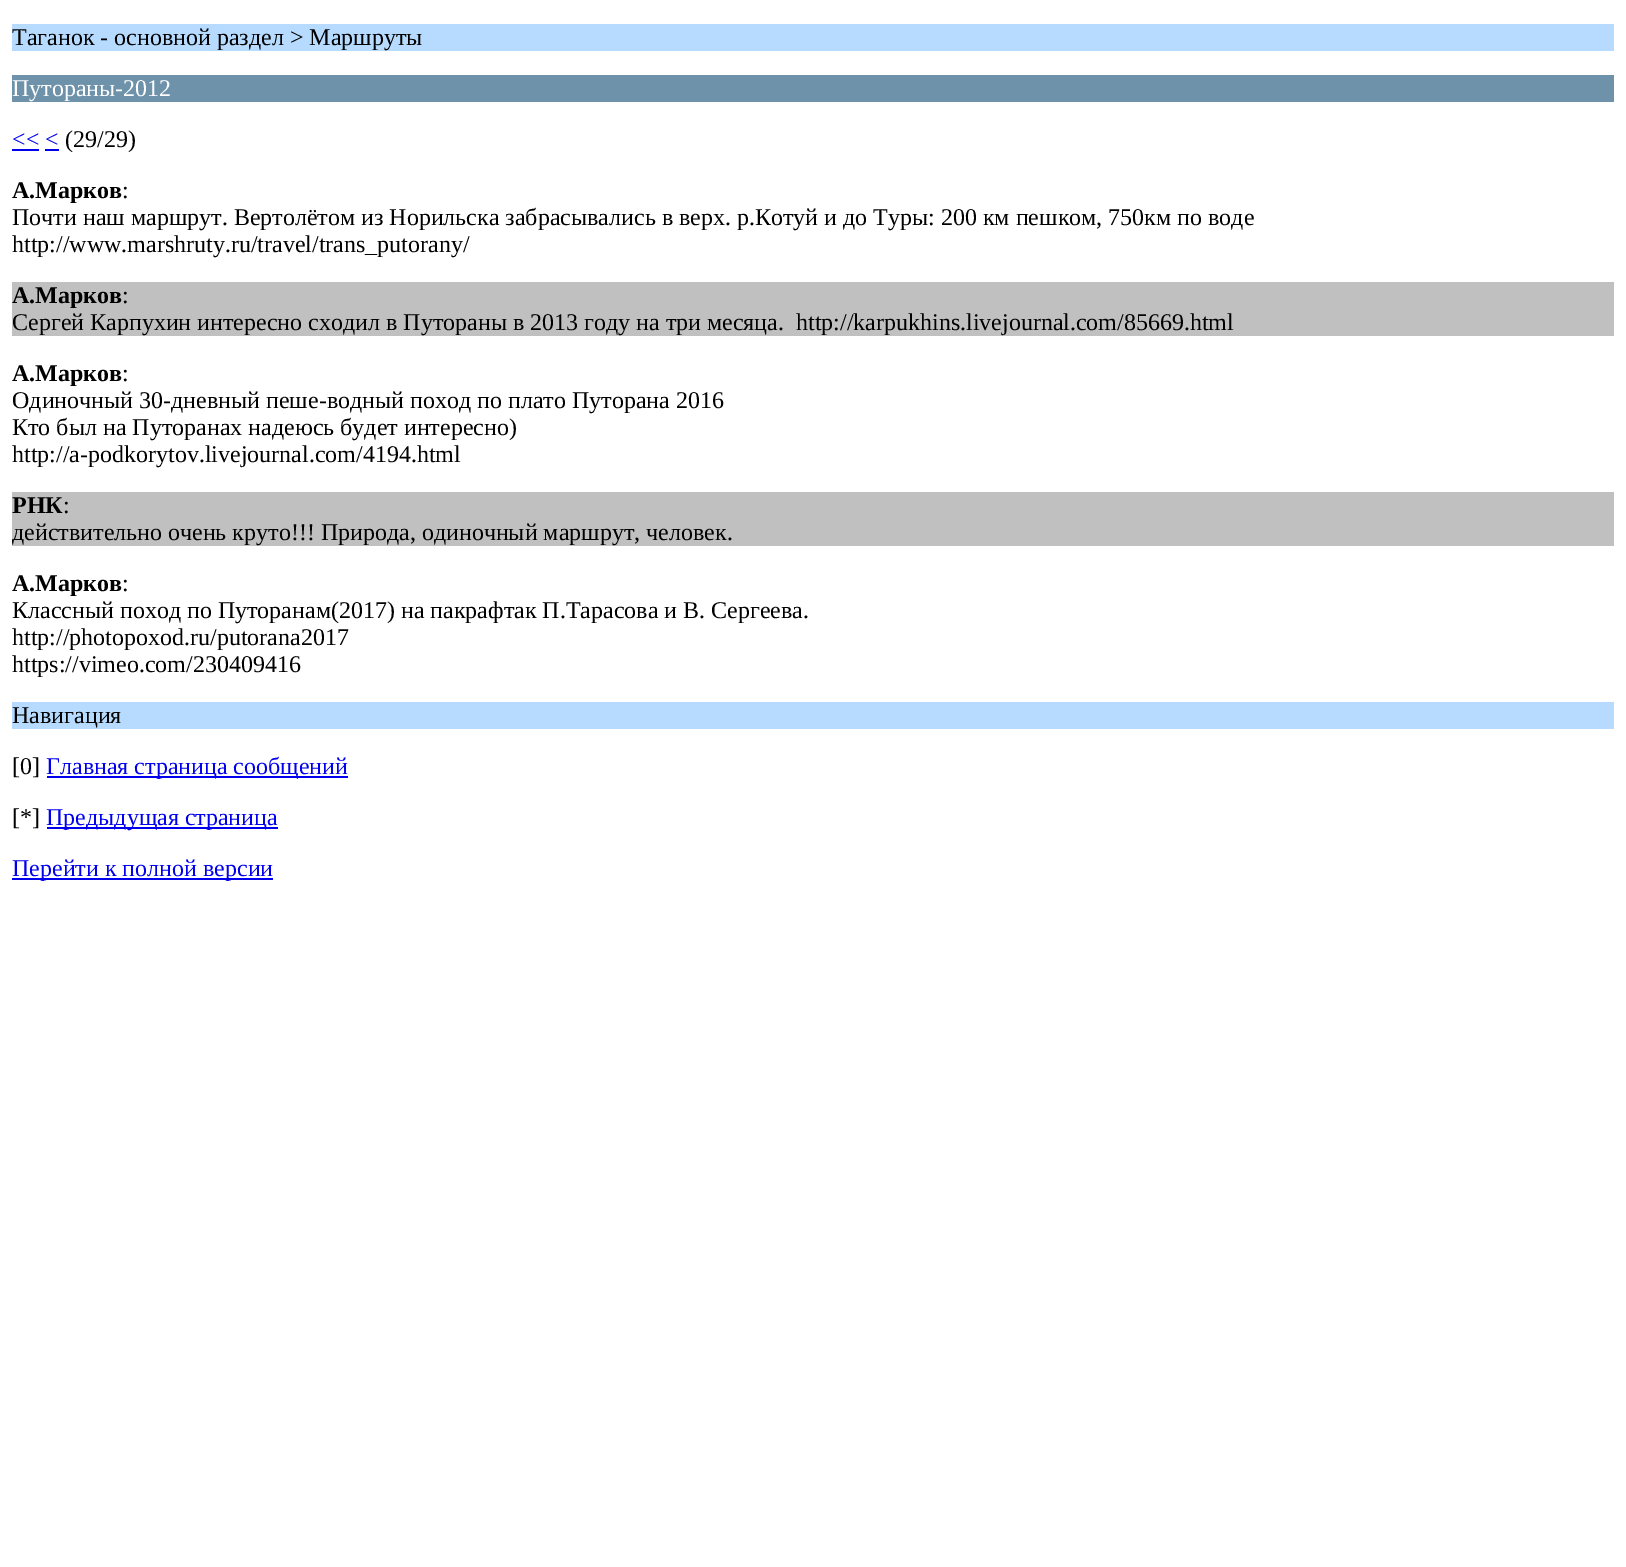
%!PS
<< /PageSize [1626 1567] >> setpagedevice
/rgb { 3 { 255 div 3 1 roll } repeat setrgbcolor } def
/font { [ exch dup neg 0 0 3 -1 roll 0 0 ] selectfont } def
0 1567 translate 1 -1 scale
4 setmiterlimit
255 255 255 rgb
0 0 1626 1567 rectfill
[
  [12 24 1602 27 182 219 255]
  [12 75 1602 27 109 146 170]
  [12 149 27 2 0 0 238]
  [45 149 14 2 0 0 238]
  [12 282 1602 54 192 192 192]
  [12 492 1602 54 192 192 192]
  [12 702 1602 27 182 219 255]
  [47 776 301 2 0 0 238]
  [47 827 231 2 0 0 238]
  [12 878 261 2 0 0 238]
] { aload pop rgb rectfill } forall
/LiberationSerif-Regular 24 font
0 0 0 rgb
12 45 moveto (Таганок - основной раздел > Маршруты) show
255 255 255 rgb
12 96 moveto (Путораны-2012) show
0 0 238 rgb
12 147 moveto (<< <) show
0 0 0 rgb
65 147 moveto (\(29/29\)) show
/LiberationSerif-Bold 24 font
12 198 moveto (А.Марков) show
/LiberationSerif-Regular 24 font
[
  [(:) 122 198]
  [(Почти наш маршрут. Вертолётом из Норильска забрасывались в верх. р.Котуй и до Туры: 200 км пешком, 750км по воде) 12 225]
  [(http://www.marshruty.ru/travel/trans_putorany/) 12 252]
] { aload pop moveto show } forall
/LiberationSerif-Bold 24 font
12 303 moveto (А.Марков) show
/LiberationSerif-Regular 24 font
122 303 moveto (:) show
12 330 moveto (Сергей Карпухин интересно сходил в Путораны в 2013 году на три месяца.  http://karpukhins.livejournal.com/85669.html) show
/LiberationSerif-Bold 24 font
12 381 moveto (А.Марков) show
/LiberationSerif-Regular 24 font
[
  [(:) 122 381]
  [(Одиночный 30-дневный пеше-водный поход по плато Путорана 2016) 12 408]
  [(Кто был на Путоранах надеюсь будет интересно\)) 12 435]
  [(http://a-podkorytov.livejournal.com/4194.html) 12 462]
] { aload pop moveto show } forall
/LiberationSerif-Bold 24 font
12 513 moveto (РНК) show
/LiberationSerif-Regular 24 font
63 513 moveto (:) show
12 540 moveto (действительно очень круто!!! Природа, одиночный маршрут, человек.) show
/LiberationSerif-Bold 24 font
12 591 moveto (А.Марков) show
/LiberationSerif-Regular 24 font
[
  [(:) 122 591]
  [(Классный поход по Путоранам\(2017\) на пакрафтак П.Тарасова и В. Сергеева.) 12 618]
  [(http://photopoxod.ru/putorana2017) 12 645]
  [(https://vimeo.com/230409416) 12 672]
  [(Навигация) 12 723]
  [([0]) 12 774]
] { aload pop moveto show } forall
0 0 238 rgb
46 774 moveto (Главная страница сообщений) show
0 0 0 rgb
12 825 moveto ([*]) show
0 0 238 rgb
46 825 moveto (Предыдущая страница) show
12 876 moveto (Перейти к полной версии) show
showpage
